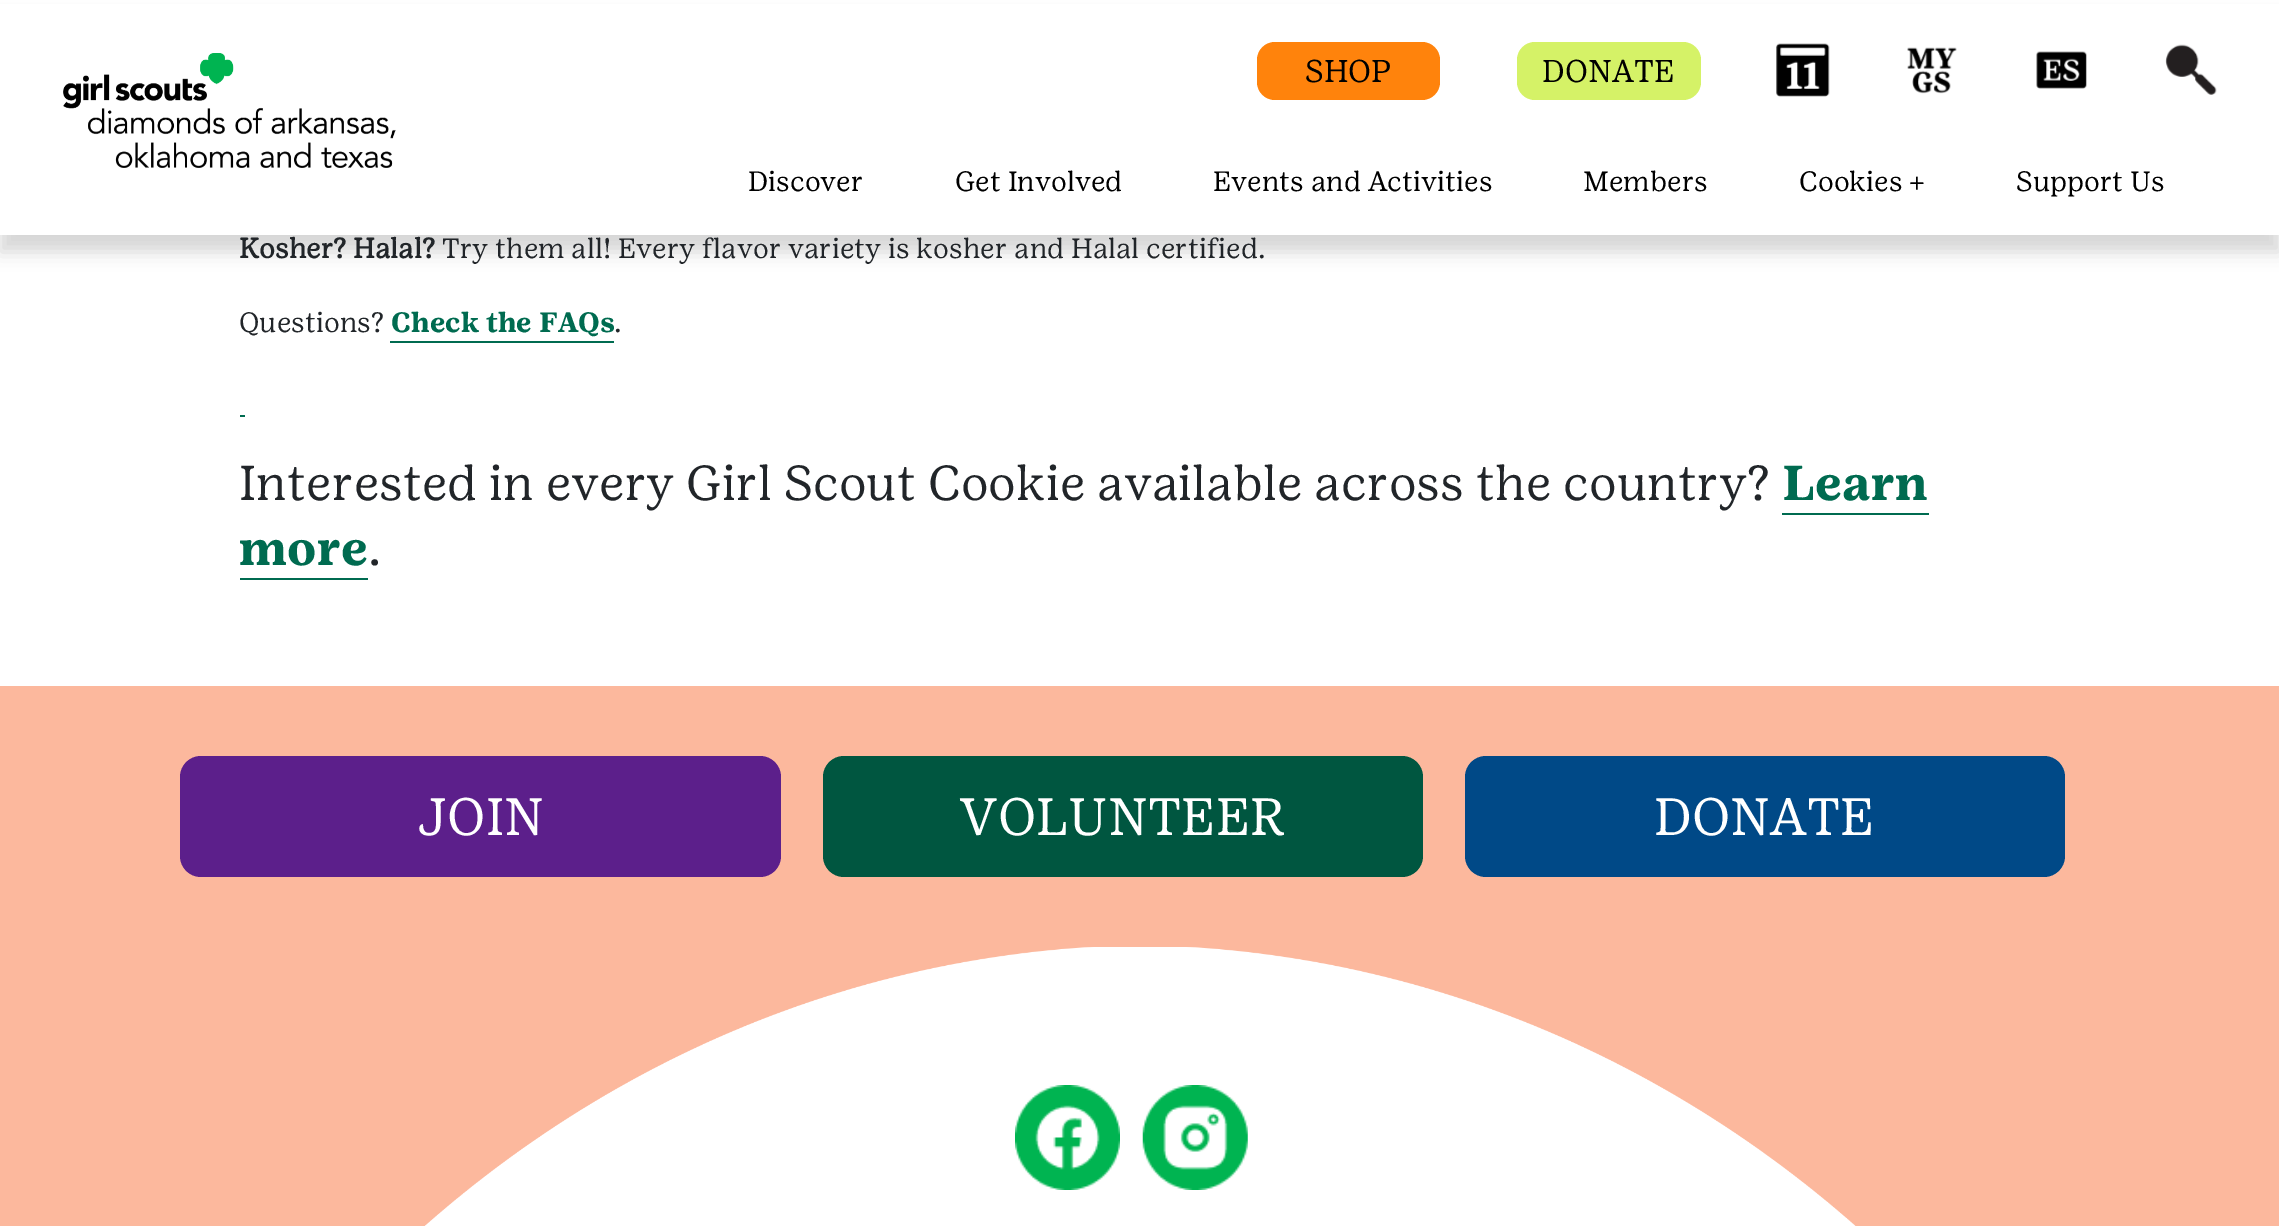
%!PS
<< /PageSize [2279 1226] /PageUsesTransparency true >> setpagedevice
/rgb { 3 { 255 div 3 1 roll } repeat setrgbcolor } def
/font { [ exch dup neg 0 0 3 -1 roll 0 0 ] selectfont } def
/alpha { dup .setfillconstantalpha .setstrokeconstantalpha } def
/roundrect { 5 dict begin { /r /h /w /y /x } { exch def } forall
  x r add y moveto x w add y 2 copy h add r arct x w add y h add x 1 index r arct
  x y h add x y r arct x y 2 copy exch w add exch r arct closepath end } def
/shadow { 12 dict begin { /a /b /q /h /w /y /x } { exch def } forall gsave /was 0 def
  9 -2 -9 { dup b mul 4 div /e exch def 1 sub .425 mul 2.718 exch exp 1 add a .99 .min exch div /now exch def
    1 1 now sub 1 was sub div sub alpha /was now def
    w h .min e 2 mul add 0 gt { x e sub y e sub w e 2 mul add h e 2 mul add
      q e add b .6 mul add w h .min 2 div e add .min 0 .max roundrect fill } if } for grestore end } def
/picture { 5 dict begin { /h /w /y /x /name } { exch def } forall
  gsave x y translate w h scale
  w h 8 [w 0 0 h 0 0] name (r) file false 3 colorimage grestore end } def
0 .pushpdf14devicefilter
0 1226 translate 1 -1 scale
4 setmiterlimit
255 255 255 rgb
0 0 2279 1226 rectfill
0 0 0 rgb
0 18 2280 234 0 9 0.16 shadow
255 255 255 rgb
0 4 2279 231 rectfill
(img/1.rgb) 63 53 333 115 picture
255 131 12 rgb
1257 42 183 58 18 roundrect fill
213 242 103 rgb
1517 42 184 58 18 roundrect fill
(img/2.rgb) 1776 43 54 54 picture
(img/3.rgb) 1907 47 50 47 picture
(img/4.rgb) 2036 51 51 38 picture
(img/5.rgb) 2165 44 52 51 picture
[
  [390 341 224 2 0 107 80]
  [240 415 5 2 0 107 80]
  [1782 513 147 2 0 107 80]
  [240 578 128 2 0 107 80]
  [0 686 2279 261 252 184 157]
] { aload pop rgb rectfill } forall
92 31 139 rgb
180 756 601 121 21 roundrect fill
0 86 64 rgb
823 756 600 121 21 roundrect fill
0 73 135 rgb
1465 756 600 121 21 roundrect fill
(img/6.rgb) 0 947 2279 279 picture
(img/7.rgb) 1015 1085 105 105 picture
(img/8.rgb) 1142 1085 106 105 picture
/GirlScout-Regular 31.5 font
0 0 0 rgb
1305 82 moveto (SHOP) show
1542 82 moveto (DONATE) show
/GirlScout-Regular 28 font
[
  [(Discover) 748 191]
  [(Get Involved) 955 191]
  [(Events and Activities) 1213 191]
  [(Members) 1583 191]
  [(Cookies +) 1799 191]
  [(Support Us) 2016 191]
] { aload pop moveto show } forall
/GirlScout-Bold 28 font
33 37 41 rgb
239 258 moveto (Kosher? Halal?) show
/GirlScout-Regular 28 font
442 258 moveto (Try them all! Every flavor variety is kosher and Halal certified.) show
239 332 moveto (Questions?) show
/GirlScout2-Bold 28 font
0 107 80 rgb
391 332 moveto (Check the FAQs) show
/GirlScout-Regular 28 font
33 37 41 rgb
614 332 moveto (.) show
/GirlScout-Regular 49 font
239 500 moveto (Interested in every Girl Scout Cookie available across the country?) show
/GirlScout2-Bold 49 font
0 107 80 rgb
1782 500 moveto (Learn) show
239 565 moveto (more) show
/GirlScout-Regular 49 font
33 37 41 rgb
368 565 moveto (.) show
/GirlScout-Regular 52.5 font
255 255 255 rgb
[
  [(JOIN) 417 835]
  [(VOLUNTEER) 959 835]
  [(DONATE) 1654 835]
] { aload pop moveto show } forall
.poppdf14devicefilter showpage
